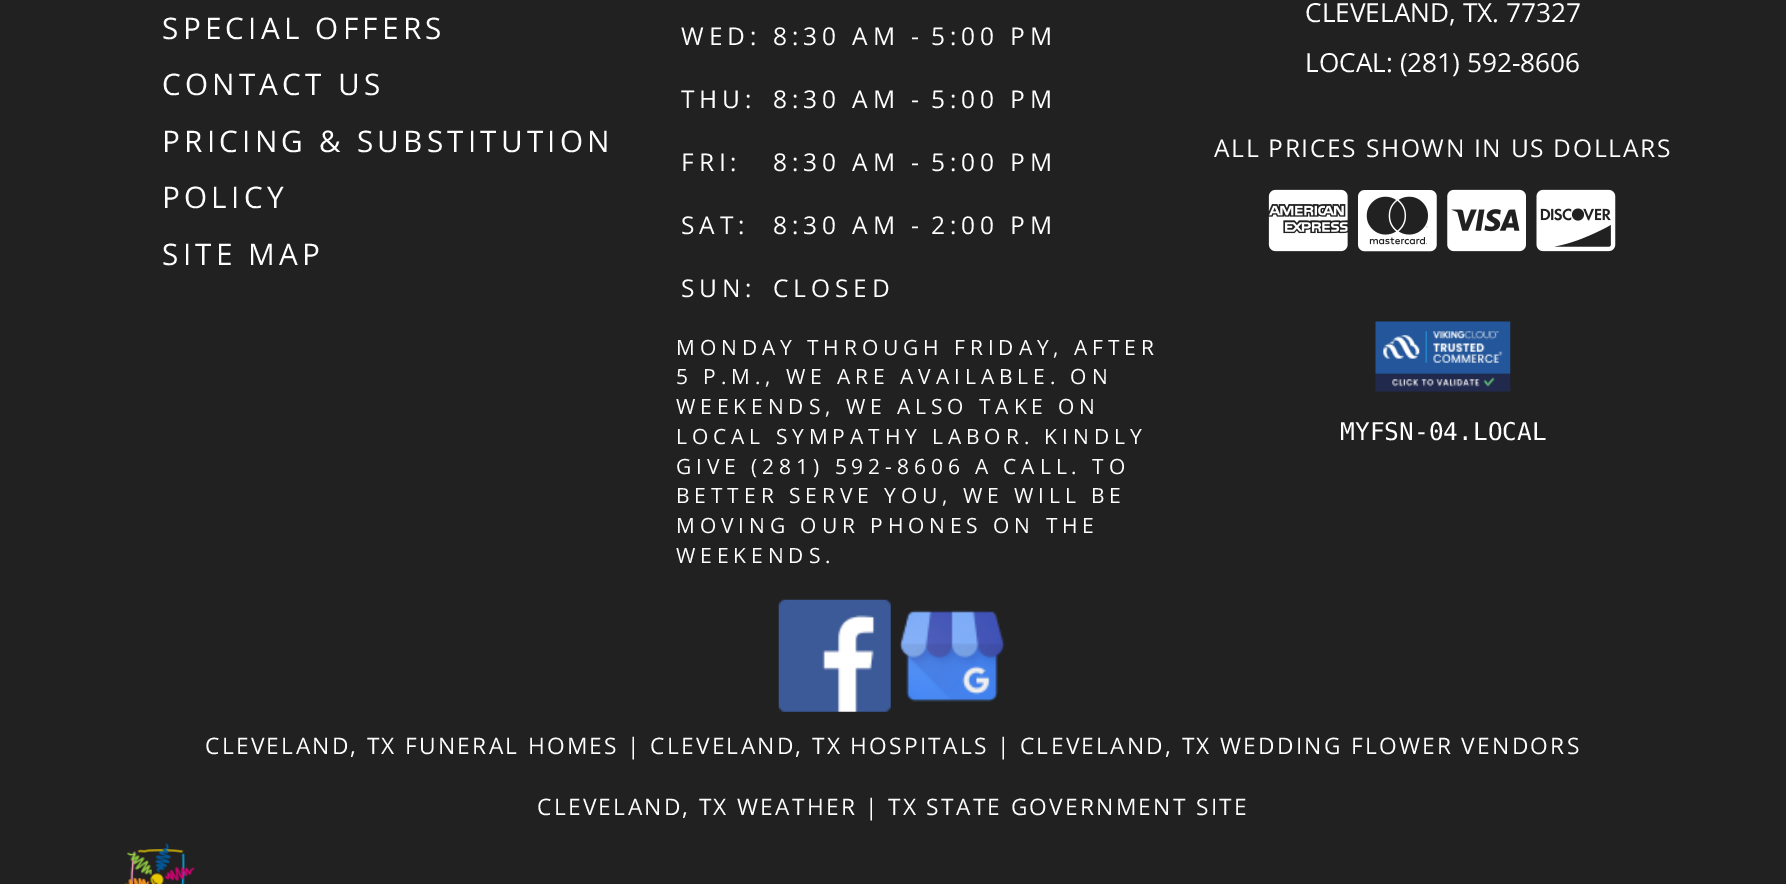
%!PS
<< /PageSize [1786 884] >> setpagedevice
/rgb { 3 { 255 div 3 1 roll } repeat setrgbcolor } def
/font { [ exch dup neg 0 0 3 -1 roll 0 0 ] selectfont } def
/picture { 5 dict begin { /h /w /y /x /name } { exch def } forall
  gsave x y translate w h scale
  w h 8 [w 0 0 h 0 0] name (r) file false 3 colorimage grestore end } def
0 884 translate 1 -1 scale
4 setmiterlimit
33 33 33 rgb
0 0 1786 884 rectfill
(img/1.rgb) 1268 189 80 63 picture
(img/2.rgb) 1358 190 79 62 picture
(img/3.rgb) 1447 189 79 63 picture
(img/4.rgb) 1536 189 80 63 picture
(img/5.rgb) 1375 321 136 71 picture
(img/6.rgb) 778 599 113 113 picture
(img/7.rgb) 899 610 106 92 picture
(img/8.rgb) 124 843 71 41 picture
/OpenSans-Regular 29.75 font
255 255 255 rgb
162 39 moveto 4.2 0 (SPECIAL OFFERS) ashow
162 95 moveto 4.2 0 (CONTACT US) ashow
162 152 moveto 4.2 0 (PRICING & SUBSTITUTION) ashow
162 208 moveto 4.2 0 (POLICY) ashow
162 265 moveto 4.2 0 (SITE MAP) ashow
/OpenSans-Regular 24.5 font
681 45 moveto 4.9 0 (WED:) ashow
773 45 moveto 4.9 0 (8:30 AM -) ashow
931 45 moveto 4.9 0 (5:00 PM) ashow
681 108 moveto 4.9 0 (THU:) ashow
773 108 moveto 4.9 0 (8:30 AM -) ashow
931 108 moveto 4.9 0 (5:00 PM) ashow
681 171 moveto 4.9 0 (FRI:) ashow
773 171 moveto 4.9 0 (8:30 AM -) ashow
931 171 moveto 4.9 0 (5:00 PM) ashow
681 234 moveto 4.9 0 (SAT:) ashow
773 234 moveto 4.9 0 (8:30 AM -) ashow
931 234 moveto 4.9 0 (2:00 PM) ashow
681 297 moveto 4.9 0 (SUN:) ashow
773 297 moveto 4.9 0 (CLOSED) ashow
/OpenSans-Regular 21 font
676 355 moveto 4.9 0 (MONDAY THROUGH FRIDAY, AFTER) ashow
676 384 moveto 4.9 0 (5 P.M., WE ARE AVAILABLE. ON) ashow
676 414 moveto 4.9 0 (WEEKENDS, WE ALSO TAKE ON) ashow
676 444 moveto 4.9 0 (LOCAL SYMPATHY LABOR. KINDLY) ashow
676 474 moveto 4.9 0 (GIVE \(281\) 592-8606 A CALL. TO) ashow
676 503 moveto 4.9 0 (BETTER SERVE YOU, WE WILL BE) ashow
676 533 moveto 4.9 0 (MOVING OUR PHONES ON THE) ashow
676 563 moveto 4.9 0 (WEEKENDS.) ashow
/OpenSans-Regular 26.25 font
1305 22 moveto (CLEVELAND, TX. 77327) show
1305 72 moveto (LOCAL: \(281\) 592-8606) show
/OpenSans-Regular 24.5 font
1214 157 moveto 1.7 0 (ALL PRICES SHOWN IN US DOLLARS) ashow
/DejaVuSansMono-Regular 24.5 font
1340 440 moveto (MYFSN-04.LOCAL) show
/OpenSans-Regular 22.75 font
205 754 moveto 2.27 0 (CLEVELAND, TX FUNERAL HOMES | CLEVELAND, TX HOSPITALS | CLEVELAND, TX WEDDING FLOWER VENDORS) ashow
537 815 moveto 2.27 0 (CLEVELAND, TX WEATHER | TX STATE GOVERNMENT SITE) ashow
showpage
